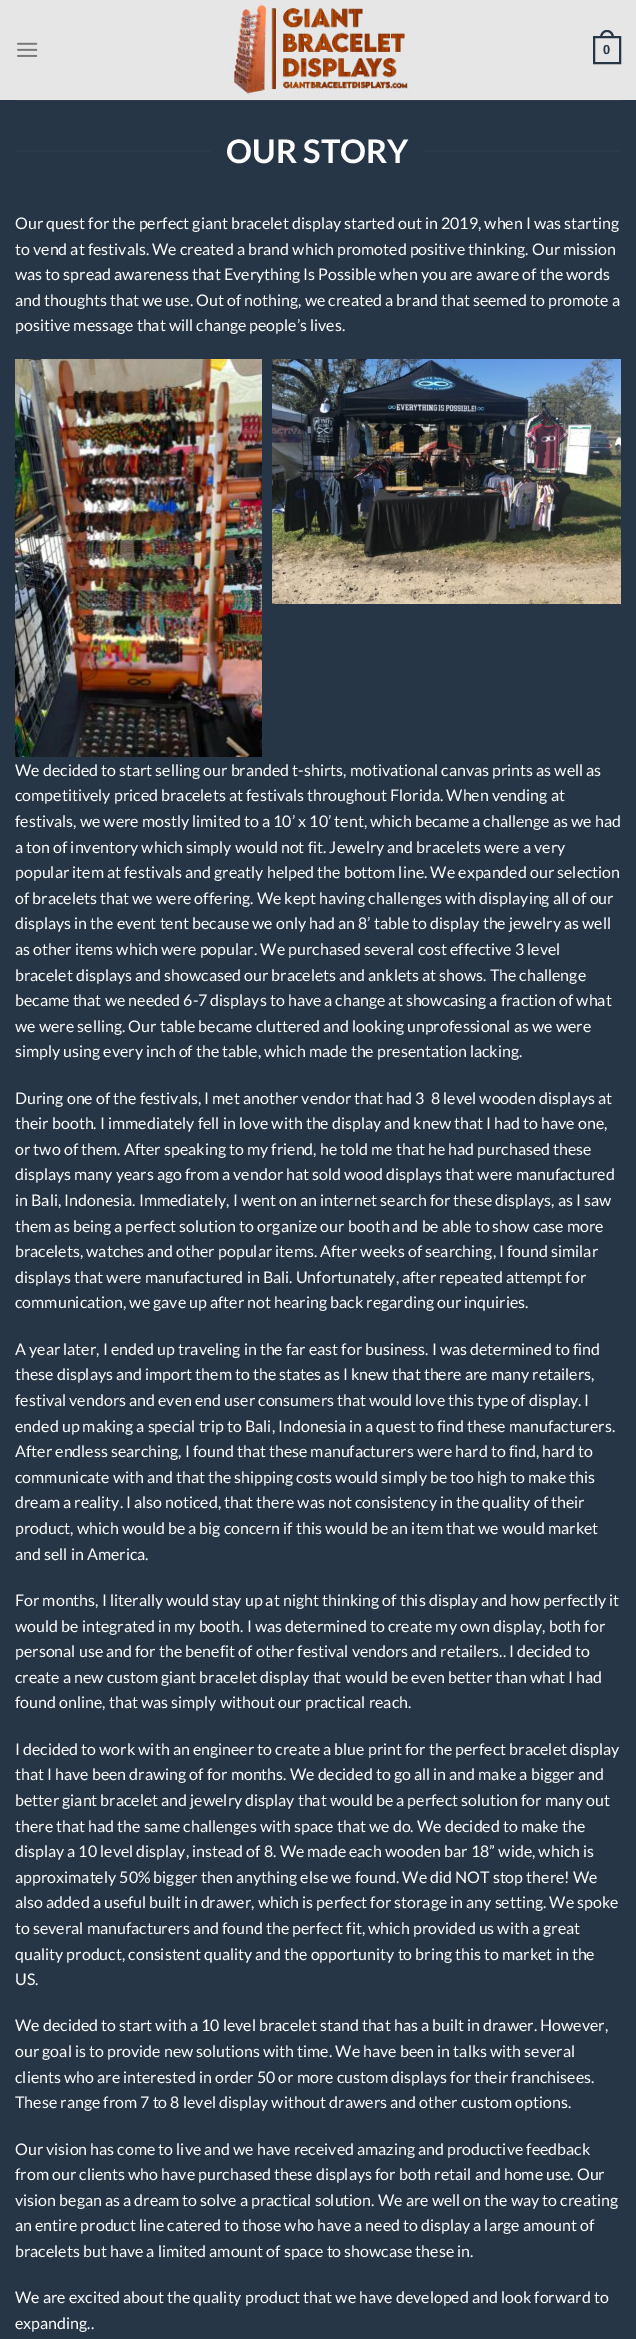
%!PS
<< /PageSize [636 2339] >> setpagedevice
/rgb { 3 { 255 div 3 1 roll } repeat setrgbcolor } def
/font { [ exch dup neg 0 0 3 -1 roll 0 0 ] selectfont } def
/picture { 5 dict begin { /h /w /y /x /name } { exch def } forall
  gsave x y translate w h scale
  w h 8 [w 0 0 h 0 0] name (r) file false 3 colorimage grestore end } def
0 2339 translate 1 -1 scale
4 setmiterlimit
39 54 71 rgb
0 0 636 2339 rectfill
230 230 230 rgb
0 0 636 100 rectfill
(img/1.rgb) 17 42 21 15 picture
(img/2.rgb) 230 0 181 95 picture
39 54 71 rgb
2 setlinewidth
594 37 26 26 rectstroke
607 30 moveto 611.5 30 614 34 614 38 curveto 600 38 lineto 600 34 602.5 30 607 30 curveto closepath 607 32 moveto 610.5 32 612 35 612 38 curveto 602 38 lineto 602 35 603.5 32 607 32 curveto closepath eofill
[
  [15 100 606 1 47 61 76]
  [15 150 196 2 44 57 72]
  [425 150 196 2 44 57 72]
] { aload pop rgb rectfill } forall
(img/3.rgb) 15 359 247 398 picture
(img/4.rgb) 272 359 349 245 picture
/LiberationSans-Bold 13 font
39 54 71 rgb
603 54 moveto (0) show
/Lato-Bold 32.5 font
255 255 255 rgb
226 163 moveto (OUR STORY) show
/Lato-Regular 16 font
[
  [(Our quest for the perfect giant bracelet display started out in 2019, when I was starting) 15 229]
  [(to vend at festivals. We created a brand which promoted positive thinking. Our mission) 15 255]
  [(was to spread awareness that Everything Is Possible when you are aware of the words) 15 280]
  [(and thoughts that we use. Out of nothing, we created a brand that seemed to promote a) 15 306]
  [(positive message that will change people’s lives.) 15 331]
  [(We decided to start selling our branded t-shirts, motivational canvas prints as well as) 15 776]
  [(competitively priced bracelets at festivals throughout Florida. When vending at) 15 801]
  [(festivals, we were mostly limited to a 10’ x 10’ tent, which became a challenge as we had) 15 827]
  [(a ton of inventory which simply would not fit. Jewelry and bracelets were a very) 15 853]
  [(popular item at festivals and greatly helped the bottom line. We expanded our selection) 15 878]
  [(of bracelets that we were offering. We kept having challenges with displaying all of our) 15 904]
  [(displays in the event tent because we only had an 8’ table to display the jewelry as well) 15 929]
  [(as other items which were popular. We purchased several cost effective 3 level) 15 955]
  [(bracelet displays and showcased our bracelets and anklets at shows. The challenge) 15 981]
  [(became that we needed 6-7 displays to have a change at showcasing a fraction of what) 15 1006]
  [(we were selling. Our table became cluttered and looking unprofessional as we were) 15 1032]
  [(simply using every inch of the table, which made the presentation lacking.) 15 1057]
  [(During one of the festivals, I met another vendor that had 3  8 level wooden displays at) 15 1104]
  [(their booth. I immediately fell in love with the display and knew that I had to have one,) 15 1129]
  [(or two of them. After speaking to my friend, he told me that he had purchased these) 15 1155]
  [(displays many years ago from a vendor hat sold wood displays that were manufactured) 15 1180]
  [(in Bali, Indonesia. Immediately, I went on an internet search for these displays, as I saw) 15 1206]
  [(them as being a perfect solution to organize our booth and be able to show case more) 15 1232]
  [(bracelets, watches and other popular items. After weeks of searching, I found similar) 15 1257]
  [(displays that were manufactured in Bali. Unfortunately, after repeated attempt for) 15 1283]
  [(communication, we gave up after not hearing back regarding our inquiries.) 15 1308]
  [(A year later, I ended up traveling in the far east for business. I was determined to find) 15 1355]
  [(these displays and import them to the states as I knew that there are many retailers,) 15 1380]
  [(festival vendors and even end user consumers that would love this type of display. I) 15 1406]
  [(ended up making a special trip to Bali, Indonesia in a quest to find these manufacturers.) 15 1432]
  [(After endless searching, I found that these manufacturers were hard to find, hard to) 15 1457]
  [(communicate with and that the shipping costs would simply be too high to make this) 15 1483]
  [(dream a reality. I also noticed, that there was not consistency in the quality of their) 15 1508]
  [(product, which would be a big concern if this would be an item that we would market) 15 1534]
  [(and sell in America.) 15 1560]
  [(For months, I literally would stay up at night thinking of this display and how perfectly it) 15 1606]
  [(would be integrated in my booth. I was determined to create my own display, both for) 15 1632]
  [(personal use and for the benefit of other festival vendors and retailers.. I decided to) 15 1657]
  [(create a new custom giant bracelet display that would be even better than what I had) 15 1683]
  [(found online, that was simply without our practical reach.) 15 1708]
  [(I decided to work with an engineer to create a blue print for the perfect bracelet display) 15 1755]
  [(that I have been drawing of for months. We decided to go all in and make a bigger and) 15 1780]
  [(better giant bracelet and jewelry display that would be a perfect solution for many out) 15 1806]
  [(there that had the same challenges with space that we do. We decided to make the) 15 1832]
  [(display a 10 level display, instead of 8. We made each wooden bar 18” wide, which is) 15 1857]
  [(approximately 50% bigger then anything else we found. We did NOT stop there! We) 15 1883]
  [(also added a useful built in drawer, which is perfect for storage in any setting. We spoke) 15 1908]
  [(to several manufacturers and found the perfect fit, which provided us with a great) 15 1934]
  [(quality product, consistent quality and the opportunity to bring this to market in the) 15 1960]
  [(US.) 15 1985]
  [(We decided to start with a 10 level bracelet stand that has a built in drawer. However,) 15 2031]
  [(our goal is to provide new solutions with time. We have been in talks with several) 15 2057]
  [(clients who are interested in order 50 or more custom displays for their franchisees.) 15 2083]
  [(These range from 7 to 8 level display without drawers and other custom options.) 15 2108]
  [(Our vision has come to live and we have received amazing and productive feedback) 15 2155]
  [(from our clients who have purchased these displays for both retail and home use. Our) 15 2180]
  [(vision began as a dream to solve a practical solution. We are well on the way to creating) 15 2206]
  [(an entire product line catered to those who have a need to display a large amount of) 15 2231]
  [(bracelets but have a limited amount of space to showcase these in.) 15 2257]
  [(We are excited about the quality product that we have developed and look forward to) 15 2303]
  [(expanding..) 15 2329]
] { aload pop moveto show } forall
showpage
